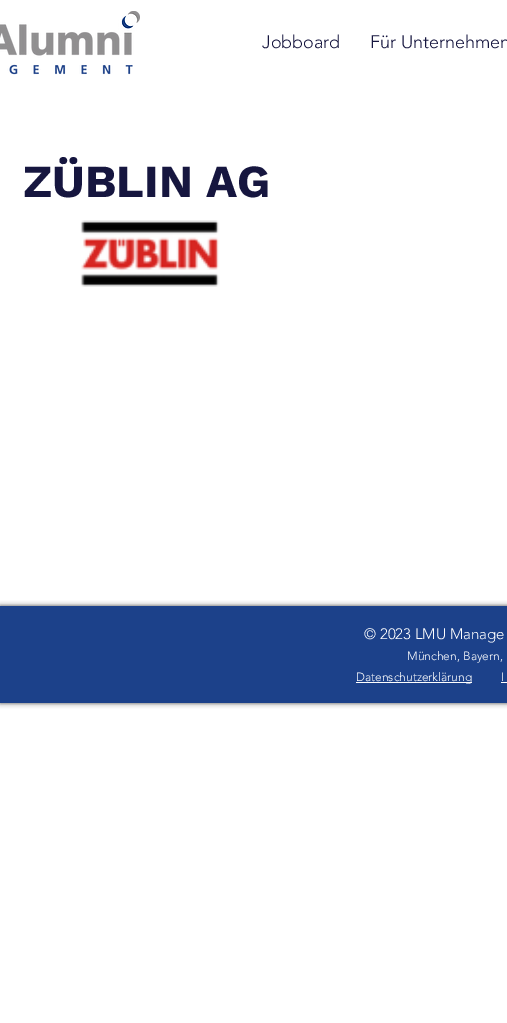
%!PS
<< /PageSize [507 1023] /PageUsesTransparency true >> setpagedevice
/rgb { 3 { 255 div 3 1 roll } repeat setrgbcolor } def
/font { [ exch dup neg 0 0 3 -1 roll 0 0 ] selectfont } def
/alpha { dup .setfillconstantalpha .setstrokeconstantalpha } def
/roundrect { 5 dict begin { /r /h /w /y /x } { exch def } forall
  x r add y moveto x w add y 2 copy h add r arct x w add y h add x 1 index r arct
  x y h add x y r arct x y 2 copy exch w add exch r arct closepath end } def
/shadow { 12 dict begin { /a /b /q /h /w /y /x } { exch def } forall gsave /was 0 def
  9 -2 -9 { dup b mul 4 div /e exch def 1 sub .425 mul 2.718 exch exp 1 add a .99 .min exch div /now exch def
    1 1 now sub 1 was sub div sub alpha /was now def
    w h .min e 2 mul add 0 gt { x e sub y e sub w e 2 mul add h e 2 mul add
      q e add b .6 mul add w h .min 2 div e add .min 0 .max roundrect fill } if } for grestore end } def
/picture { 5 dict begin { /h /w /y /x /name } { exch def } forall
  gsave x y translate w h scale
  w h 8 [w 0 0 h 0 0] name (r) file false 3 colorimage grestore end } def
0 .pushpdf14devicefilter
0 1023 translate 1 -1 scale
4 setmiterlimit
255 255 255 rgb
0 0 507 1023 rectfill
(img/1.rgb) 0 11 140 64 picture
(img/2.rgb) 80 220 140 67 picture
0 0 0 rgb
0 606 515 97 0 2.5 0.7 shadow
[
  [0 606 507 97 28 65 138]
  [356 682 116 1 255 255 255]
  [501 682 6 1 255 255 255]
] { aload pop rgb rectfill } forall
/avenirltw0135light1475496-Light 18 font
22 22 63 rgb
262 48 moveto (Jobboard) show
370 48 moveto (Für Unternehmen) show
/WorkSans-Bold 46 font
23 197 moveto (ZÜBLIN AG) show
/avenirltw0135light1475496-Light 15 font
255 255 255 rgb
364 639 moveto (© 2023 LMU Manage) show
/avenirltw0135light1475496-Light 12 font
[
  [(München, Bayern,) 407 660]
  [(Datenschutzerklärung) 356 681]
  [(I) 501 681]
] { aload pop moveto show } forall
.poppdf14devicefilter showpage
